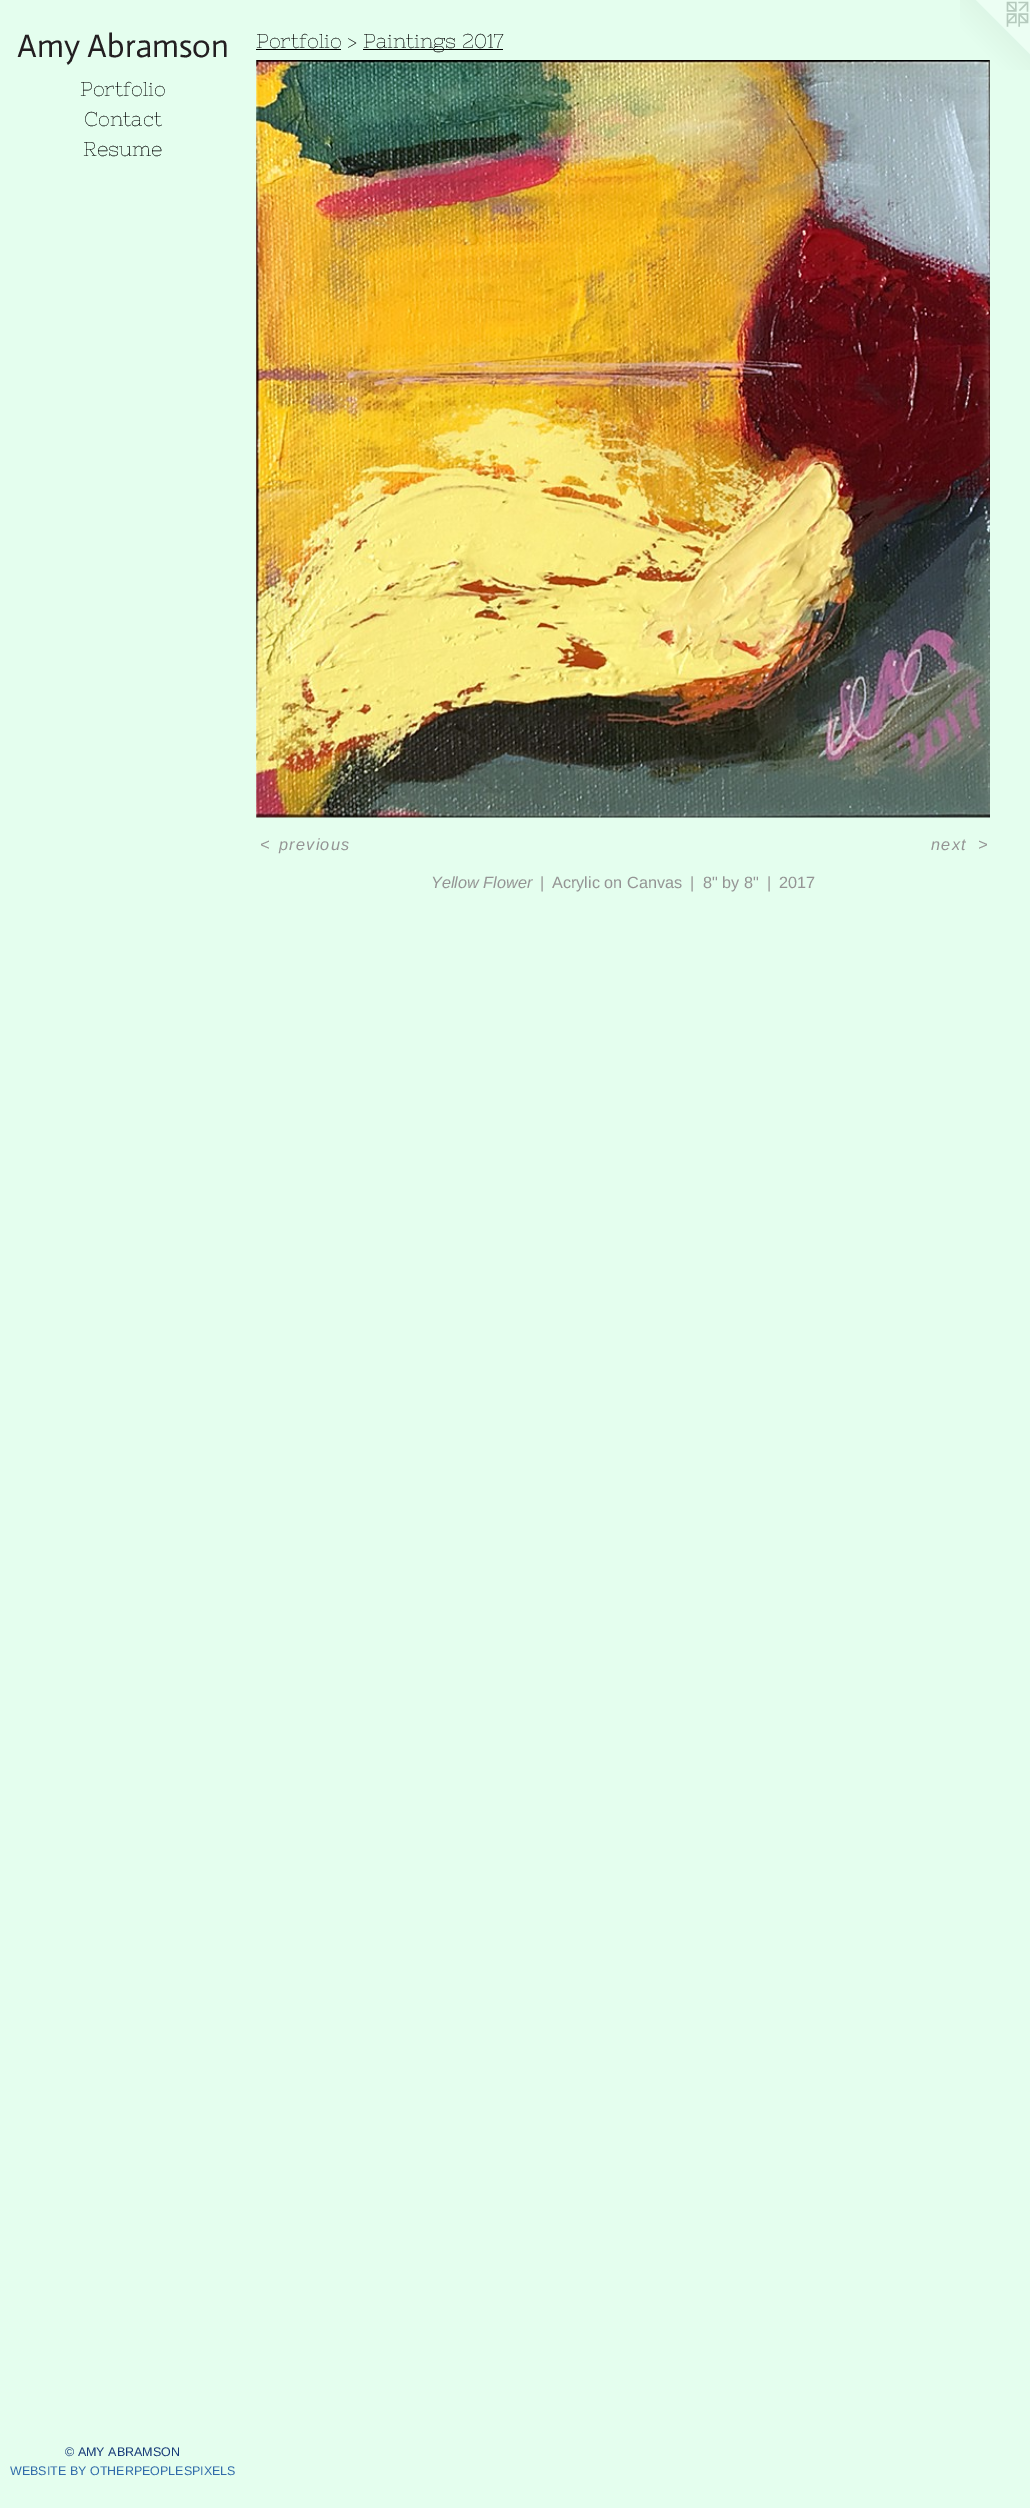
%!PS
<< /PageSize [1030 2508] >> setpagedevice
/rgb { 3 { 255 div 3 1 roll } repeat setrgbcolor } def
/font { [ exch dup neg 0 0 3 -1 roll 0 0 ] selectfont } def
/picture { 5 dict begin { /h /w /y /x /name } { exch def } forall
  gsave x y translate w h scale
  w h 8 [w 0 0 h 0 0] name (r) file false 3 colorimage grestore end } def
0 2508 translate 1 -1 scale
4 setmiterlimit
228 254 238 rgb
0 0 1030 2508 rectfill
0 0 0 rgb
256 49 85 1 rectfill
363 49 140 1 rectfill
(img/2.rgb) 960 0 70 70 picture
(img/1.rgb) 256 60 734 758 picture
/Actor-Regular 32.5 font
35 31 33 rgb
17 57 moveto (Amy Abramson) show
/NixieOne-Regular 20 font
0 0 0 rgb
[
  [(Portfolio) 80 96]
  [(Contact) 84 126]
  [(Resume) 83 156]
] { aload pop moveto show } forall
/LiberationSans-Regular 12.5 font
23 58 120 rgb
65 2456 moveto (© AMY ABRAMSON) show
49 108 170 rgb
10 2475 moveto (WEBSITE BY OTHERPEOPLESPIXELS) show
/NixieOne-Regular 20 font
0 0 0 rgb
256 48 moveto (Portfolio >) show
363 48 moveto (Paintings 2017) show
/LiberationSans-Italic 16.25 font
148 148 148 rgb
260 850 moveto 1.25 0 (<) ashow
279 850 moveto 1.25 0 (previous) ashow
931 850 moveto 1.25 0 (next) ashow
978 850 moveto 1.25 0 (>) ashow
431 888 moveto (Yellow Flower) show
/LiberationSans-Regular 16.25 font
[
  [(|) 540 888]
  [(Acrylic on Canvas) 552 888]
  [(|) 690 888]
  [(8" by 8") 703 888]
  [(|) 767 888]
  [(2017) 779 888]
] { aload pop moveto show } forall
showpage
